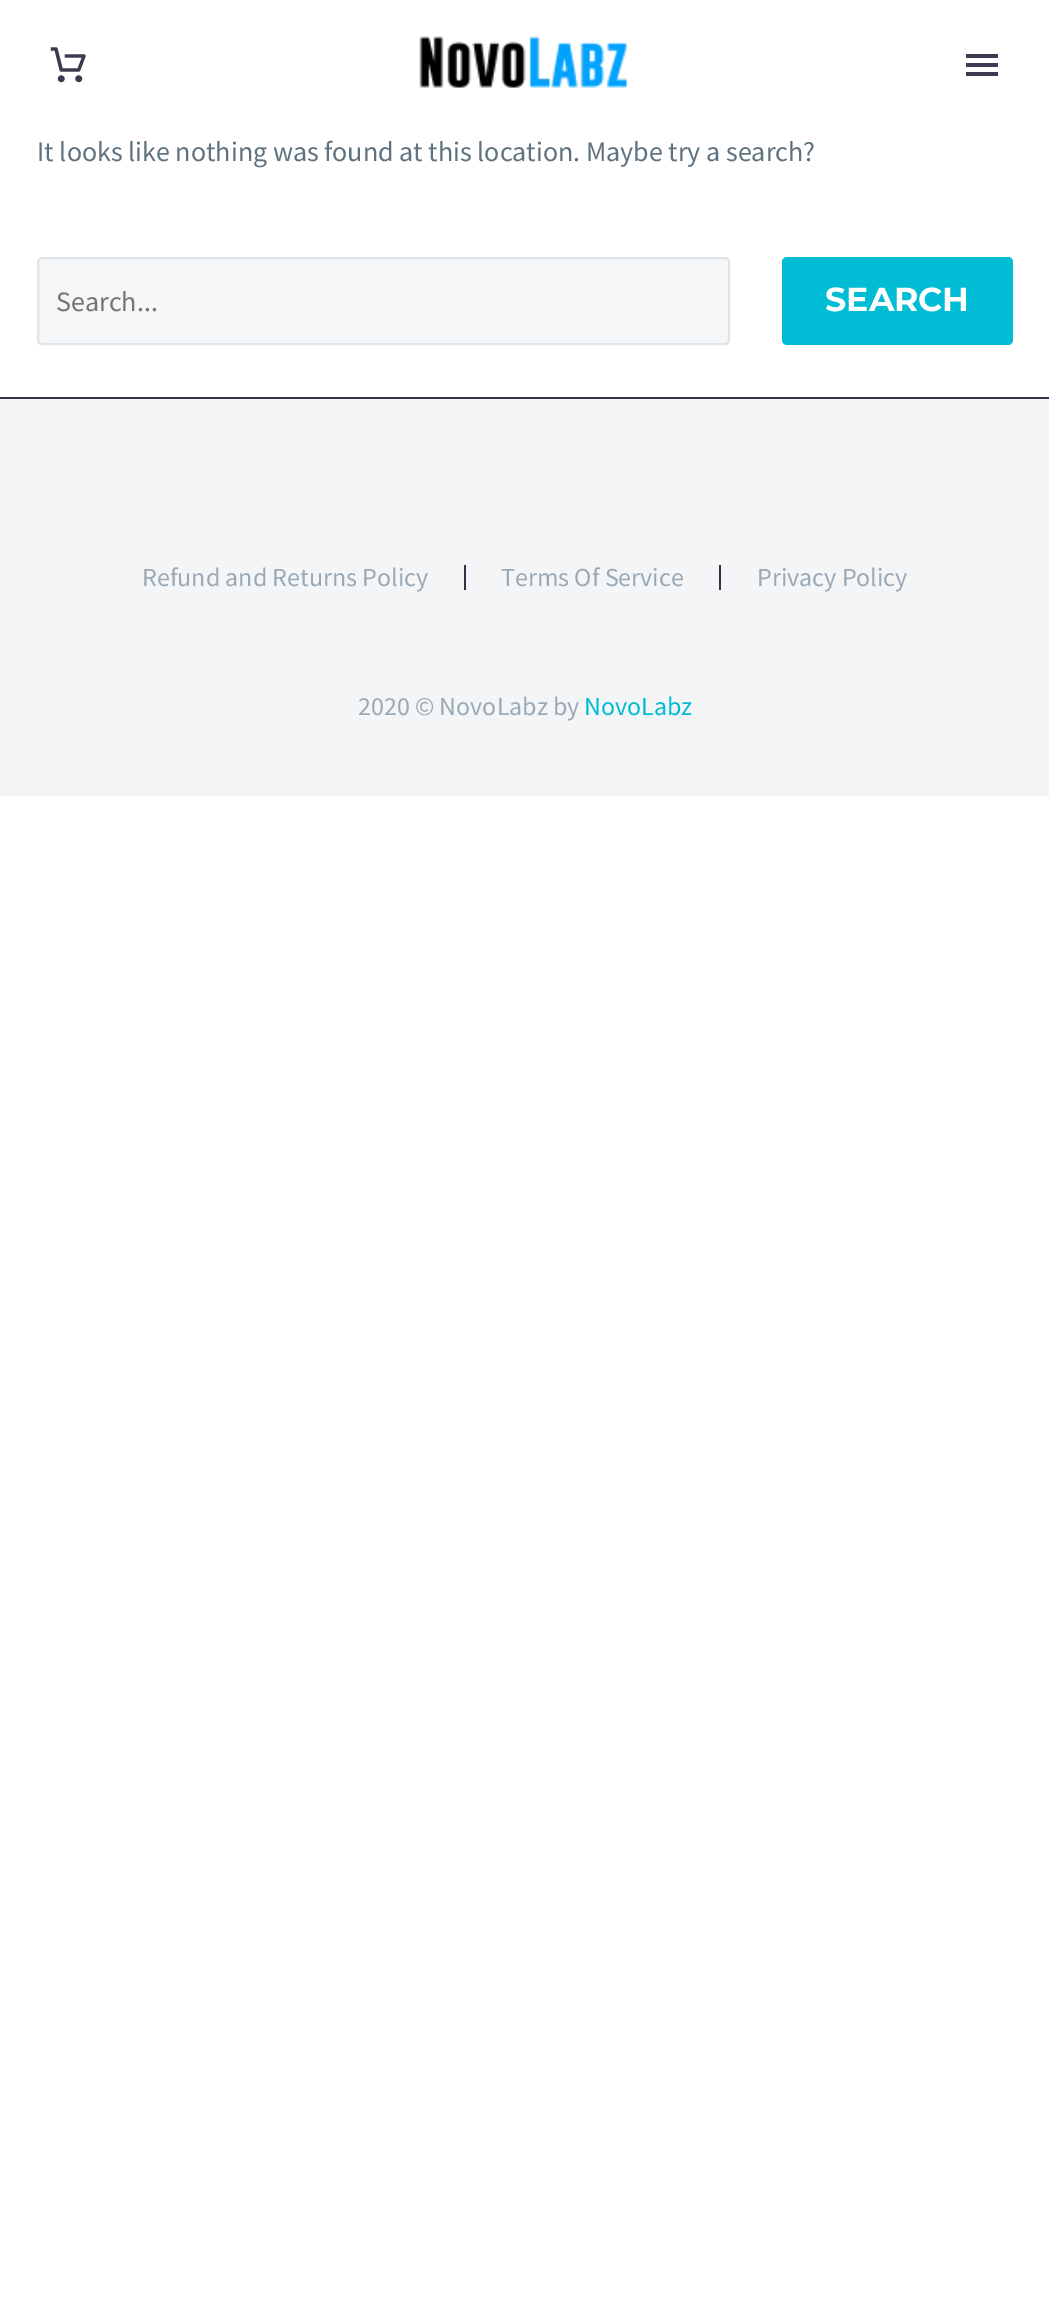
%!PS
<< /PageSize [1049 2321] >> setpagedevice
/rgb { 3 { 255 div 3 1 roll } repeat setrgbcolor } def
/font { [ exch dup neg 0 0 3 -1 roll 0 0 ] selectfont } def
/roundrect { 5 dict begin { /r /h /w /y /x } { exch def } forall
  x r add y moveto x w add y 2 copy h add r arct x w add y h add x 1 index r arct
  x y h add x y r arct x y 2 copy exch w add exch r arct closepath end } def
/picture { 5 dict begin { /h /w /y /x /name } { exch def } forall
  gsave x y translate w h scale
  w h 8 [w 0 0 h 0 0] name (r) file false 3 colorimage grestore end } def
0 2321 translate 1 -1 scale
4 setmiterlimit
255 255 255 rgb
0 0 1049 2321 rectfill
(img/1.rgb) 50 47 36 36 picture
(img/2.rgb) 419 36 209 52 picture
[
  [966 54 32 4 60 57 80]
  [966 63 32 4 60 57 80]
  [966 72 32 4 60 57 80]
] { aload pop rgb rectfill } forall
244 246 247 rgb
38 258 691 86 4 roundrect gsave fill grestore
223 229 232 rgb
2 setlinewidth
stroke
0 188 212 rgb
782 257 231 88 5 roundrect fill
[
  [0 399 1049 397 244 245 247]
  [0 397 1049 2 49 54 70]
  [464 565 2 25 51 49 70]
  [719 565 2 25 51 49 70]
] { aload pop rgb rectfill } forall
/SourceSansPro-Regular 28 font
95 114 127 rgb
37 161 moveto (It looks like nothing was found at this location. Maybe try a search?) show
117 117 117 rgb
56 311 moveto (Search...) show
/Montserrat-Bold 33.25 font
255 255 255 rgb
825 311 moveto (SEARCH) show
/SourceSansPro-Regular 26 font
153 169 181 rgb
[
  [(Refund and Returns Policy) 142 586]
  [(Terms Of Service) 501 586]
  [(Privacy Policy) 757 586]
  [(2020 © NovoLabz by) 358 715]
] { aload pop moveto show } forall
0 188 212 rgb
584 715 moveto (NovoLabz) show
showpage
